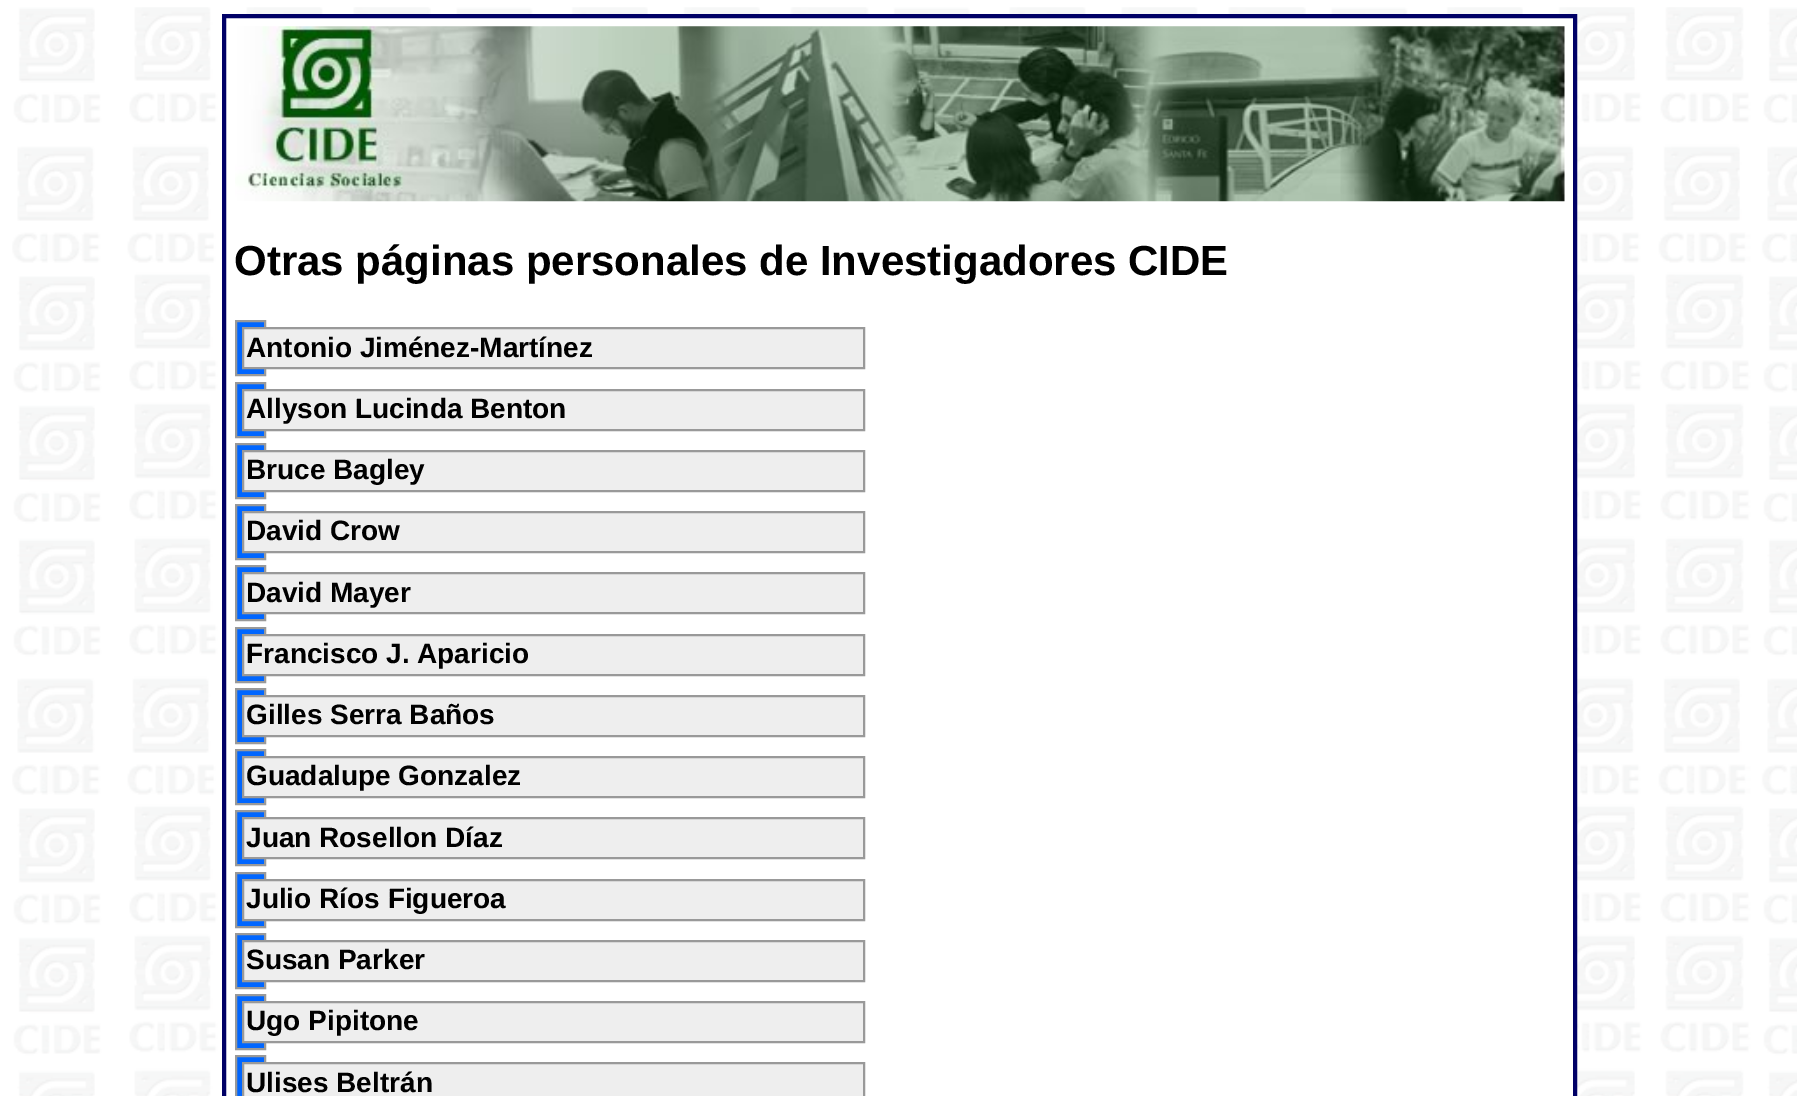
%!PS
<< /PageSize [1797 1096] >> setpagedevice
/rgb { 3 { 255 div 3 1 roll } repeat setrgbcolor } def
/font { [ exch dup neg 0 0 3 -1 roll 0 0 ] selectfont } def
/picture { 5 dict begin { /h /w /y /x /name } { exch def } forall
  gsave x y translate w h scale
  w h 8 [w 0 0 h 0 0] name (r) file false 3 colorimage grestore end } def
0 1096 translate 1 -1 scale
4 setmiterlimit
255 255 255 rgb
0 0 1797 1096 rectfill
(img/1.rgb) 12 7 1785 1089 picture
239 18 1334 1078 rectfill
0 0 102 rgb
2 setlinewidth
223 15 1353 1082 rectstroke
225 17 1349 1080 rectstroke
(img/2.rgb) 235 26 1330 176 picture
0 102 255 rgb
236 321 moveto 265 321 lineto 265 375 lineto 236 375 lineto closepath gsave fill grestore
153 153 153 rgb
stroke
238 238 238 rgb
243 328 moveto 864 328 lineto 864 368 lineto 243 368 lineto closepath gsave fill grestore
153 153 153 rgb
stroke
0 102 255 rgb
236 383 moveto 265 383 lineto 265 437 lineto 236 437 lineto closepath gsave fill grestore
153 153 153 rgb
stroke
238 238 238 rgb
243 390 moveto 864 390 lineto 864 430 lineto 243 430 lineto closepath gsave fill grestore
153 153 153 rgb
stroke
0 102 255 rgb
236 444 moveto 265 444 lineto 265 498 lineto 236 498 lineto closepath gsave fill grestore
153 153 153 rgb
stroke
238 238 238 rgb
243 451 moveto 864 451 lineto 864 491 lineto 243 491 lineto closepath gsave fill grestore
153 153 153 rgb
stroke
0 102 255 rgb
236 505 moveto 265 505 lineto 265 559 lineto 236 559 lineto closepath gsave fill grestore
153 153 153 rgb
stroke
238 238 238 rgb
243 512 moveto 864 512 lineto 864 552 lineto 243 552 lineto closepath gsave fill grestore
153 153 153 rgb
stroke
0 102 255 rgb
236 566 moveto 265 566 lineto 265 620 lineto 236 620 lineto closepath gsave fill grestore
153 153 153 rgb
stroke
238 238 238 rgb
243 573 moveto 864 573 lineto 864 613 lineto 243 613 lineto closepath gsave fill grestore
153 153 153 rgb
stroke
0 102 255 rgb
236 628 moveto 265 628 lineto 265 682 lineto 236 682 lineto closepath gsave fill grestore
153 153 153 rgb
stroke
238 238 238 rgb
243 635 moveto 864 635 lineto 864 675 lineto 243 675 lineto closepath gsave fill grestore
153 153 153 rgb
stroke
0 102 255 rgb
236 689 moveto 265 689 lineto 265 743 lineto 236 743 lineto closepath gsave fill grestore
153 153 153 rgb
stroke
238 238 238 rgb
243 696 moveto 864 696 lineto 864 736 lineto 243 736 lineto closepath gsave fill grestore
153 153 153 rgb
stroke
0 102 255 rgb
236 750 moveto 265 750 lineto 265 804 lineto 236 804 lineto closepath gsave fill grestore
153 153 153 rgb
stroke
238 238 238 rgb
243 757 moveto 864 757 lineto 864 797 lineto 243 797 lineto closepath gsave fill grestore
153 153 153 rgb
stroke
0 102 255 rgb
236 811 moveto 265 811 lineto 265 865 lineto 236 865 lineto closepath gsave fill grestore
153 153 153 rgb
stroke
238 238 238 rgb
243 818 moveto 864 818 lineto 864 858 lineto 243 858 lineto closepath gsave fill grestore
153 153 153 rgb
stroke
0 102 255 rgb
236 873 moveto 265 873 lineto 265 927 lineto 236 927 lineto closepath gsave fill grestore
153 153 153 rgb
stroke
238 238 238 rgb
243 880 moveto 864 880 lineto 864 920 lineto 243 920 lineto closepath gsave fill grestore
153 153 153 rgb
stroke
0 102 255 rgb
236 934 moveto 265 934 lineto 265 988 lineto 236 988 lineto closepath gsave fill grestore
153 153 153 rgb
stroke
238 238 238 rgb
243 941 moveto 864 941 lineto 864 981 lineto 243 981 lineto closepath gsave fill grestore
153 153 153 rgb
stroke
0 102 255 rgb
236 995 moveto 265 995 lineto 265 1049 lineto 236 1049 lineto closepath gsave fill grestore
153 153 153 rgb
stroke
238 238 238 rgb
243 1002 moveto 864 1002 lineto 864 1042 lineto 243 1042 lineto closepath gsave fill grestore
153 153 153 rgb
stroke
0 102 255 rgb
236 1056 moveto 265 1056 lineto 265 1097 lineto 236 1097 lineto closepath gsave fill grestore
153 153 153 rgb
stroke
238 238 238 rgb
243 1063 moveto 864 1063 lineto 864 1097 lineto 243 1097 lineto closepath gsave fill grestore
153 153 153 rgb
stroke
/LiberationSans-Bold 42 font
0 0 0 rgb
234 275 moveto (Otras páginas personales de Investigadores CIDE) show
/LiberationSans-Bold 28 font
[
  [(Antonio Jiménez-Martínez) 246 357]
  [(Allyson Lucinda Benton) 246 418]
  [(Bruce Bagley) 246 479]
  [(David Crow) 246 540]
  [(David Mayer) 246 602]
  [(Francisco J. Aparicio) 246 663]
  [(Gilles Serra Baños) 246 724]
  [(Guadalupe Gonzalez) 246 785]
  [(Juan Rosellon Díaz) 246 847]
  [(Julio Ríos Figueroa) 246 908]
  [(Susan Parker) 246 969]
  [(Ugo Pipitone) 246 1030]
  [(Ulises Beltrán) 246 1092]
] { aload pop moveto show } forall
showpage
